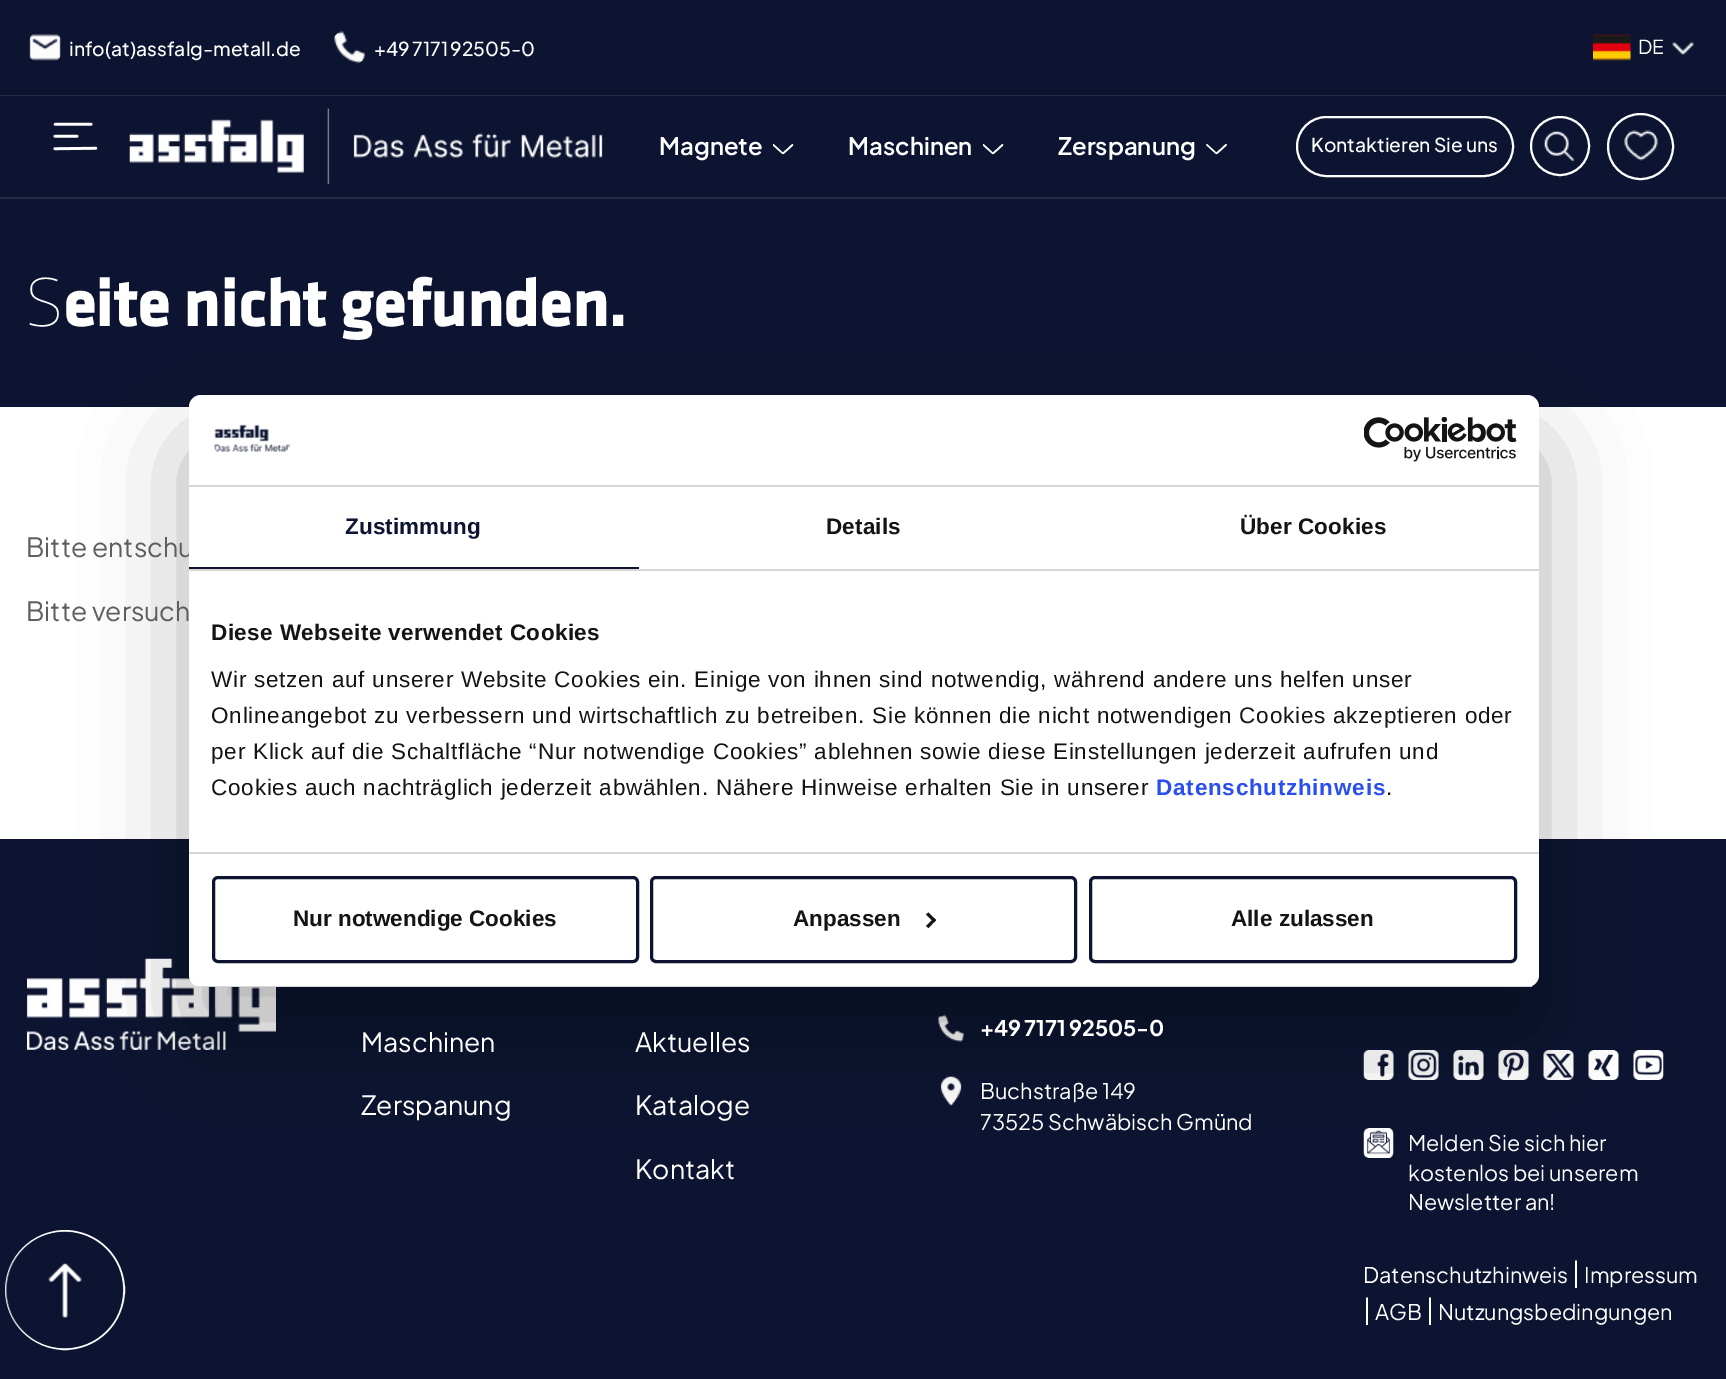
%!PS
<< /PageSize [1726 1379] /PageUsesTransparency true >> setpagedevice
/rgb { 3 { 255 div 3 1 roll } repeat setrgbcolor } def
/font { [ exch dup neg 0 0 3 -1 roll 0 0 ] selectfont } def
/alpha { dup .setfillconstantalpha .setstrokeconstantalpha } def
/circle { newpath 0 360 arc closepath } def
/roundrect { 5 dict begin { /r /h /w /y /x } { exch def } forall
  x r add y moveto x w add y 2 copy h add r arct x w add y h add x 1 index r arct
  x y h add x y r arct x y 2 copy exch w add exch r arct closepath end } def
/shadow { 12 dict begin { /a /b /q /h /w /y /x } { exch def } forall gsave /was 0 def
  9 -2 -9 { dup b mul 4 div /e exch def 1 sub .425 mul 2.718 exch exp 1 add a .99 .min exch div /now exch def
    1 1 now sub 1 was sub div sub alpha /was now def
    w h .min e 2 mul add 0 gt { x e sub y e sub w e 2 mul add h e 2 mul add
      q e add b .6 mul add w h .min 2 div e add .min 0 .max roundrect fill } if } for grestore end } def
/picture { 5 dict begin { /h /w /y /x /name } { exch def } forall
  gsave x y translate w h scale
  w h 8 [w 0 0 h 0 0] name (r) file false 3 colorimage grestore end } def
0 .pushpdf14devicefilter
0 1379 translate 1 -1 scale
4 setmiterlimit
255 255 255 rgb
0 0 1726 1379 rectfill
12 20 49 rgb
0 0 1726 95 rectfill
36 44 70 rgb
0 95 1726 1 rectfill
(img/1.rgb) 29 34 32 27 picture
(img/2.rgb) 334 31 31 33 picture
(img/3.rgb) 1593 34 38 27 picture
(img/4.rgb) 1672 41 22 14 picture
12 20 49 rgb
0 96 1726 101 rectfill
36 44 70 rgb
0 197 1726 2 rectfill
(img/5.rgb) 53 122 45 29 picture
(img/6.rgb) 129 108 474 77 picture
(img/7.rgb) 773 144 21 11 picture
(img/7.rgb) 983 144 21 11 picture
(img/8.rgb) 1206 144 21 11 picture
255 255 255 rgb
2 setlinewidth
1297 117 216 59 29.5 roundrect stroke
(img/9.rgb) 1544 131 30 30 picture
1560 146 29 circle stroke
1640.5 146.5 32.5 circle stroke
(img/10.rgb) 1624 130 34 31 picture
12 20 49 rgb
0 199 1726 208 rectfill
0 839 1726 540 rectfill
(img/14.rgb) 27 958 249 92 picture
(img/15.rgb) 938 1014 26 28 picture
(img/16.rgb) 940 1076 22 30 picture
(img/17.rgb) 1363 1050 31 30 picture
(img/18.rgb) 1408 1050 31 30 picture
(img/19.rgb) 1453 1050 31 30 picture
(img/20.rgb) 1498 1050 31 30 picture
(img/21.rgb) 1543 1050 31 30 picture
(img/22.rgb) 1588 1050 31 30 picture
(img/23.rgb) 1633 1050 31 30 picture
(img/24.rgb) 1363 1128 31 30 picture
0 0 0 rgb
189 443 1350 592 12 51 0.3 shadow
255 255 255 rgb
65 1290 59 circle stroke
(img/13.rgb) 5 1231 119 118 picture
/PlusJakartaSans-Medium 19.25 font
69 56 moveto (info\(at\)assfalg-metall.de) show
374 56 moveto -1 0 32 (+49 7171 92505-0) widthshow
/PlusJakartaSans-Regular 19.25 font
1638 54 moveto (DE) show
/PlusJakartaSans-SemiBold 24 font
[
  [(Magnete) 659 155]
  [(Maschinen) 848 155]
  [(Zerspanung) 1058 155]
] { aload pop moveto show } forall
/PlusJakartaSans-Medium 19.25 font
1311 152 moveto (Kontaktieren Sie uns) show
/NotoSans-Thin 67.25 font
26 326 moveto (S) show
/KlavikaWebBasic-Bold 67.25 font
63 326 moveto (eite nicht gefunden.) show
/PlusJakartaSans-Regular 26.5 font
94 94 94 rgb
26 557 moveto (Bitte entschu) show
26 621 moveto (Bitte versuch) show
255 255 255 rgb
189 395 1350 592 12 roundrect fill
214 214 214 rgb
189 485 1350 2 rectfill
(img/11.rgb) 214 424 76 28 picture
(img/12.rgb) 1364 417 153 45 picture
189 569 1350 2 rectfill
12 20 49 rgb
189 567 450 2 rectfill
/LiberationSans-Bold 22.5 font
345 534 moveto 0.1 0 (Zustimmung) ashow
20 20 20 rgb
826 534 moveto 0.1 0 (Details) ashow
1240 534 moveto 0.1 0 (Über Cookies) ashow
214 214 214 rgb
189 852 1350 2 rectfill
20 20 20 rgb
211 640 moveto 0.4 0 (Diese Webseite verwendet Cookies) ashow
/LiberationSans-Regular 22.5 font
211 687 moveto 0.75 0 (Wir setzen auf unserer Website Cookies ein. Einige von ihnen sind notwendig, während andere uns helfen unser) ashow
211 723 moveto 0.75 0 (Onlineangebot zu verbessern und wirtschaftlich zu betreiben. Sie können die nicht notwendigen Cookies akzeptieren oder) ashow
211 759 moveto 0.75 0 (per Klick auf die Schaltfläche “Nur notwendige Cookies” ablehnen sowie diese Einstellungen jederzeit aufrufen und) ashow
211 795 moveto 0.75 0 (Cookies auch nachträglich jederzeit abwählen. Nähere Hinweise erhalten Sie in unserer) ashow
/LiberationSans-Bold 22.5 font
42 78 239 rgb
1156 795 moveto 0.75 0 (Datenschutzhinweis) ashow
/LiberationSans-Regular 22.5 font
20 20 20 rgb
1386 795 moveto 0.75 0 (.) ashow
gsave
189 395 1350 592 12 roundrect clip newpath
214 214 214 rgb
189 986 1350 1 rectfill
grestore
12 20 49 rgb
3 setlinewidth
213.5 877.5 424 84 4.5 roundrect stroke
/LiberationSans-Bold 22.5 font
20 20 20 rgb
293 926 moveto (Nur notwendige Cookies) show
12 20 49 rgb
651.5 877.5 424 84 4.5 roundrect stroke
20 20 20 rgb
793 926 moveto (Anpassen) show
928.5 912.5 moveto 936 920 lineto 934 922.5 lineto 926 914.5 lineto closepath fill
934 918 moveto 936 920 lineto 928.5 928 lineto 926 926 lineto closepath fill
12 20 49 rgb
1090.5 877.5 425 84 4.5 roundrect stroke
20 20 20 rgb
1231 926 moveto (Alle zulassen) show
/PlusJakartaSans-Regular 26.5 font
255 255 255 rgb
[
  [(Maschinen) 361 1052]
  [(Zerspanung) 361 1115]
  [(Aktuelles) 635 1052]
  [(Kataloge) 635 1115]
  [(Kontakt) 635 1179]
] { aload pop moveto show } forall
/PlusJakartaSans-Bold 21.6 font
980 1036 moveto -1 0 32 (+49 7171 92505-0) widthshow
/PlusJakartaSans-Regular 21.6 font
[
  [(Buchstraße 149) 980 1099]
  [(73525 Schwäbisch Gmünd) 980 1130]
  [(Melden Sie sich hier) 1408 1151]
  [(kostenlos bei unserem) 1408 1181]
  [(Newsletter an!) 1408 1210]
  [(Datenschutzhinweis) 1363 1283]
] { aload pop moveto show } forall
/PlusJakartaSans-Regular 26.5 font
1572 1283 moveto (|) show
/PlusJakartaSans-Regular 21.6 font
1584 1283 moveto (Impressum) show
/PlusJakartaSans-Regular 26.5 font
1363 1320 moveto (|) show
/PlusJakartaSans-Regular 21.6 font
1375 1320 moveto (AGB) show
/PlusJakartaSans-Regular 26.5 font
1426 1320 moveto (|) show
/PlusJakartaSans-Regular 21.6 font
1438 1320 moveto (Nutzungsbedingungen) show
.poppdf14devicefilter showpage
